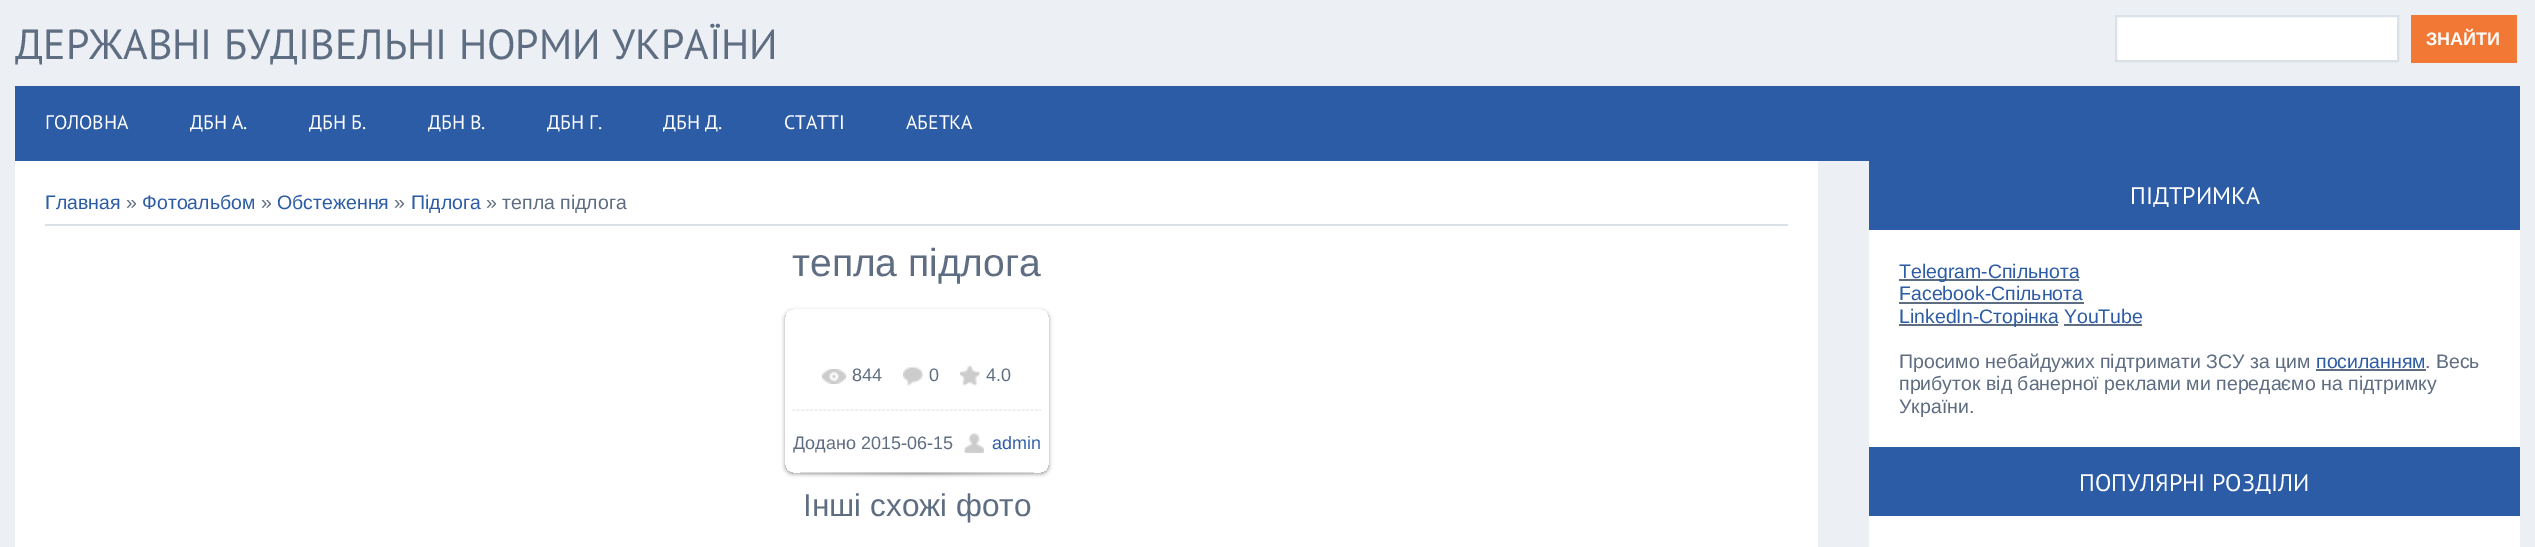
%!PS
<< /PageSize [2535 547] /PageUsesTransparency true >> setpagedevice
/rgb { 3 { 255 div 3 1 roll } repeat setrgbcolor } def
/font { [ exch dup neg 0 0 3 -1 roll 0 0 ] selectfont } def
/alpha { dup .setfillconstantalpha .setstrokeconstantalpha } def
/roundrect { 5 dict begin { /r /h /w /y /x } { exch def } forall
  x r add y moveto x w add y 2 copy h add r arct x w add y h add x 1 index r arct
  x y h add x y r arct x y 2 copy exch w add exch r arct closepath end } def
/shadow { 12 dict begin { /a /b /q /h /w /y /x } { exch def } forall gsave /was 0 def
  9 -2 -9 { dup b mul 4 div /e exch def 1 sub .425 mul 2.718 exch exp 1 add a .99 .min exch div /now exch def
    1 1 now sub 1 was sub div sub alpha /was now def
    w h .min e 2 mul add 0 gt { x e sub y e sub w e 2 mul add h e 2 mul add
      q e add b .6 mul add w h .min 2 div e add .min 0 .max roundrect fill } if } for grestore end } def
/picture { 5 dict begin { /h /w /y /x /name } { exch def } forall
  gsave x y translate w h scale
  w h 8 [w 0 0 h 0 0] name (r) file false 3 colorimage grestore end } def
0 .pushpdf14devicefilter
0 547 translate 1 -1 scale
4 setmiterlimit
236 239 243 rgb
0 0 2535 547 rectfill
255 255 255 rgb
2116 16 moveto 2398 16 lineto 2398 61 lineto 2116 61 lineto closepath gsave fill grestore
219 225 232 rgb
2 setlinewidth
stroke
[
  [2411 15 106 48 242 121 53]
  [15 86 2505 75 45 92 166]
  [15 161 1803 386 255 255 255]
  [45 224 1743 2 219 225 232]
] { aload pop rgb rectfill } forall
gsave
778 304 moveto 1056 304 lineto 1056 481 lineto 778 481 lineto closepath 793 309 moveto 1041 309 lineto 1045.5 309 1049 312.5 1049 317 curveto 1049 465 lineto 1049 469.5 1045.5 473 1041 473 curveto 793 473 lineto 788.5 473 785 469.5 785 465 curveto 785 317 lineto 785 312.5 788.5 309 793 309 curveto closepath eoclip newpath
0 0 0 rgb
785 311 264 163 8 2 0.37 shadow
grestore
(img/1.rgb) 822 369 24 15 picture
(img/2.rgb) 903 367 20 19 picture
(img/3.rgb) 960 366 20 20 picture
(img/4.rgb) 792 409 249 2 picture
(img/5.rgb) 964 433 20 20 picture
(img/6.rgb) 800 472 234 5 picture
[
  [1869 230 651 317 255 255 255]
  [1869 161 651 69 45 92 166]
  [1899 279 180 2 94 109 129]
  [1899 302 185 2 94 109 129]
  [1899 324 159 2 94 109 129]
  [2316 369 110 2 94 109 129]
  [1869 447 651 69 45 92 166]
] { aload pop rgb rectfill } forall
/PTSans-Regular 42 font
94 109 129 rgb
15 59 moveto (ДЕРЖАВНІ БУДІВЕЛЬНІ НОРМИ УКРАЇНИ) show
/LiberationSans-Bold 18 font
255 255 255 rgb
2426 45 moveto (ЗНАЙТИ) show
/PTSans-Regular 19.5 font
[
  [(ГОЛОВНА) 45 129]
  [(ДБН А.) 190 129]
  [(ДБН Б.) 309 129]
  [(ДБН В.) 428 129]
  [(ДБН Г.) 547 129]
  [(ДБН Д.) 663 129]
  [(СТАТТІ) 784 129]
  [(АБЕТКА) 906 129]
] { aload pop moveto show } forall
/LiberationSans-Regular 19.5 font
45 92 166 rgb
45 209 moveto (Главная) show
94 109 129 rgb
126 209 moveto (») show
45 92 166 rgb
142 209 moveto (Фотоальбом) show
94 109 129 rgb
261 209 moveto (») show
45 92 166 rgb
277 209 moveto (Обстеження) show
94 109 129 rgb
394 209 moveto (») show
45 92 166 rgb
411 209 moveto (Підлога) show
94 109 129 rgb
486 209 moveto (» тепла підлога) show
/LiberationSans-Regular 39 font
792 276 moveto (тепла підлога) show
/LiberationSans-Regular 18 font
[
  [(844) 852 381]
  [(0) 929 381]
  [(4.0) 986 381]
  [(Додано 2015-06-15) 793 449]
] { aload pop moveto show } forall
45 92 166 rgb
992 449 moveto (admin) show
/LiberationSans-Regular 31.5 font
94 109 129 rgb
803 516 moveto (Інші схожі фото) show
/PTSans-Regular 24 font
255 255 255 rgb
2130 204 moveto (ПІДТРИМКА) show
/LiberationSans-Regular 19.5 font
45 92 166 rgb
[
  [(Telegram-Спільнота) 1899 278]
  [(Facebook-Спільнота) 1899 300]
  [(LinkedIn-Сторінка YouTube) 1899 323]
] { aload pop moveto show } forall
94 109 129 rgb
2064 324 78 2 rectfill
1899 368 moveto (Просимо небайдужих підтримати ЗСУ за цим) show
45 92 166 rgb
2316 368 moveto (посиланням) show
94 109 129 rgb
[
  [(. Весь) 2425 368]
  [(прибуток від банерної реклами ми передаємо на підтримку) 1899 390]
  [(України.) 1899 413]
] { aload pop moveto show } forall
/PTSans-Regular 24 font
255 255 255 rgb
2079 491 moveto (ПОПУЛЯРНІ РОЗДІЛИ) show
.poppdf14devicefilter showpage
